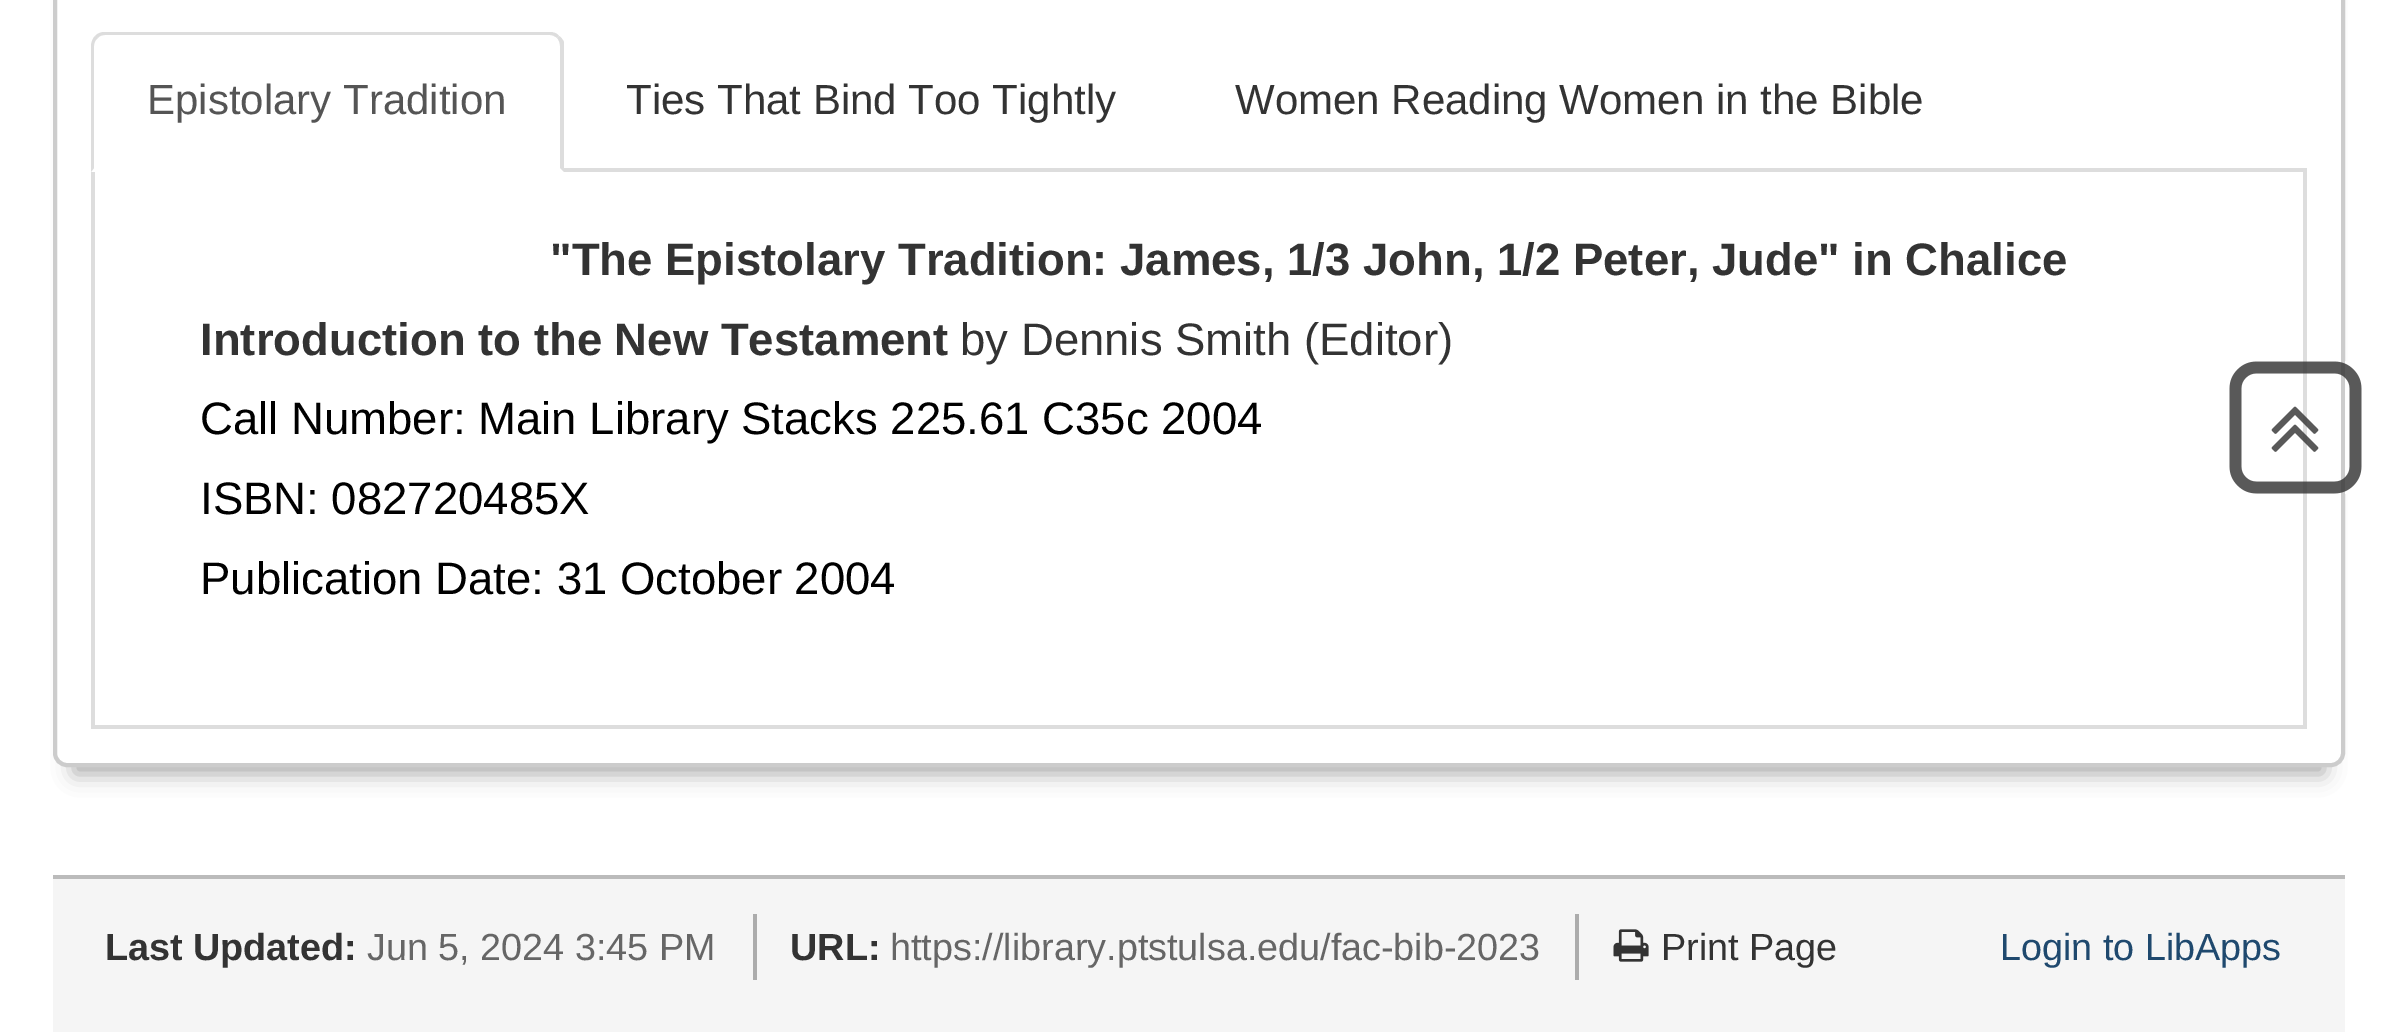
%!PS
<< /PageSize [2395 1032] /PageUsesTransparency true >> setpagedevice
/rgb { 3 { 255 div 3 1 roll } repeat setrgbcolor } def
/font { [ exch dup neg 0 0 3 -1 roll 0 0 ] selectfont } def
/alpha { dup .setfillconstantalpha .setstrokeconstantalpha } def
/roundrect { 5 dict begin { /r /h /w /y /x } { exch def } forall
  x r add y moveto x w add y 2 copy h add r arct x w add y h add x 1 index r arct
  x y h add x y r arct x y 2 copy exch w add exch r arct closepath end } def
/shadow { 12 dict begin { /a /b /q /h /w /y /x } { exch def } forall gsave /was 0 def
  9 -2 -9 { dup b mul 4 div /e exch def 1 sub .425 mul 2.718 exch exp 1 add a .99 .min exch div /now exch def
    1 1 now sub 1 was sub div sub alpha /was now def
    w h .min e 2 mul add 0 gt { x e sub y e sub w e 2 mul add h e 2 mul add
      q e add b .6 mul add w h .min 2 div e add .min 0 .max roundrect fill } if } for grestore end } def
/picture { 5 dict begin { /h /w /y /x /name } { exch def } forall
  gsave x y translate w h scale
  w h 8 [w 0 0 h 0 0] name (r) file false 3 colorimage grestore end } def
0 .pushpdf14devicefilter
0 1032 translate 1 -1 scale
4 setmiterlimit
255 255 255 rgb
0 0 2395 1032 rectfill
170 170 170 rgb
74 -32 2250 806 0 10.5 1 shadow
255 255 255 rgb
55 -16 2288 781 12 roundrect gsave fill grestore
204 204 204 rgb
4 setlinewidth
stroke
221 221 221 rgb
564 168 1743 4 rectfill
105 32 moveto 101 32 98 33 95 36 curveto 98 38 lineto 99 36 102 35 105 35 curveto 550 35 lineto 552 35 555 36 557 38 curveto 559 36 lineto 557 33 553 32 550 32 curveto closepath fill
559 36 moveto 561 37 563 40 564 42 curveto 564 172 lineto 560 168 lineto 560 46 lineto 560 43 559 40 557 38 curveto closepath fill
91 172 moveto 94 168 lineto 94 46 lineto 94 43 95 40 98 38 curveto 95 36 lineto 93 38 91 42 91 46 curveto closepath fill
[
  [2303 172 4 556 221 221 221]
  [91 725 2216 4 221 221 221]
  [91 172 4 556 221 221 221]
] { aload pop rgb rectfill } forall
(img/1.rgb) 2229 361 133 133 picture
(img/2.rgb) 2271 406 48 46 picture
[
  [53 879 2292 153 245 245 245]
  [53 875 2292 4 187 187 187]
  [753 914 4 66 172 172 172]
  [1575 914 4 66 172 172 172]
] { aload pop rgb rectfill } forall
(img/3.rgb) 1613 929 36 33 picture
/LiberationSans-Regular 42 font
85 85 85 rgb
147 114 moveto (Epistolary Tradition) show
51 51 51 rgb
626 114 moveto (Ties That Bind Too Tightly) show
1235 114 moveto (Women Reading Women in the Bible) show
/LiberationSans-Bold 45.5 font
550 275 moveto ("The Epistolary Tradition: James, 1/3 John, 1/2 Peter, Jude" in Chalice) show
200 355 moveto (Introduction to the New Testament) show
/LiberationSans-Regular 45.5 font
960 355 moveto (by Dennis Smith \(Editor\)) show
0 0 0 rgb
[
  [(Call Number: Main Library Stacks 225.61 C35c 2004) 200 434]
  [(ISBN: 082720485X) 200 514]
  [(Publication Date: 31 October 2004) 200 594]
] { aload pop moveto show } forall
/LiberationSans-Bold 37.75 font
51 51 51 rgb
105 960 moveto (Last Updated:) show
/LiberationSans-Regular 37.75 font
102 102 102 rgb
367 960 moveto (Jun 5, 2024 3:45 PM) show
/LiberationSans-Bold 37.75 font
51 51 51 rgb
790 960 moveto (URL:) show
/LiberationSans-Regular 37.75 font
102 102 102 rgb
890 960 moveto (https://library.ptstulsa.edu/fac-bib-2023) show
51 51 51 rgb
1661 960 moveto (Print Page) show
31 73 110 rgb
2000 960 moveto (Login to LibApps) show
.poppdf14devicefilter showpage
